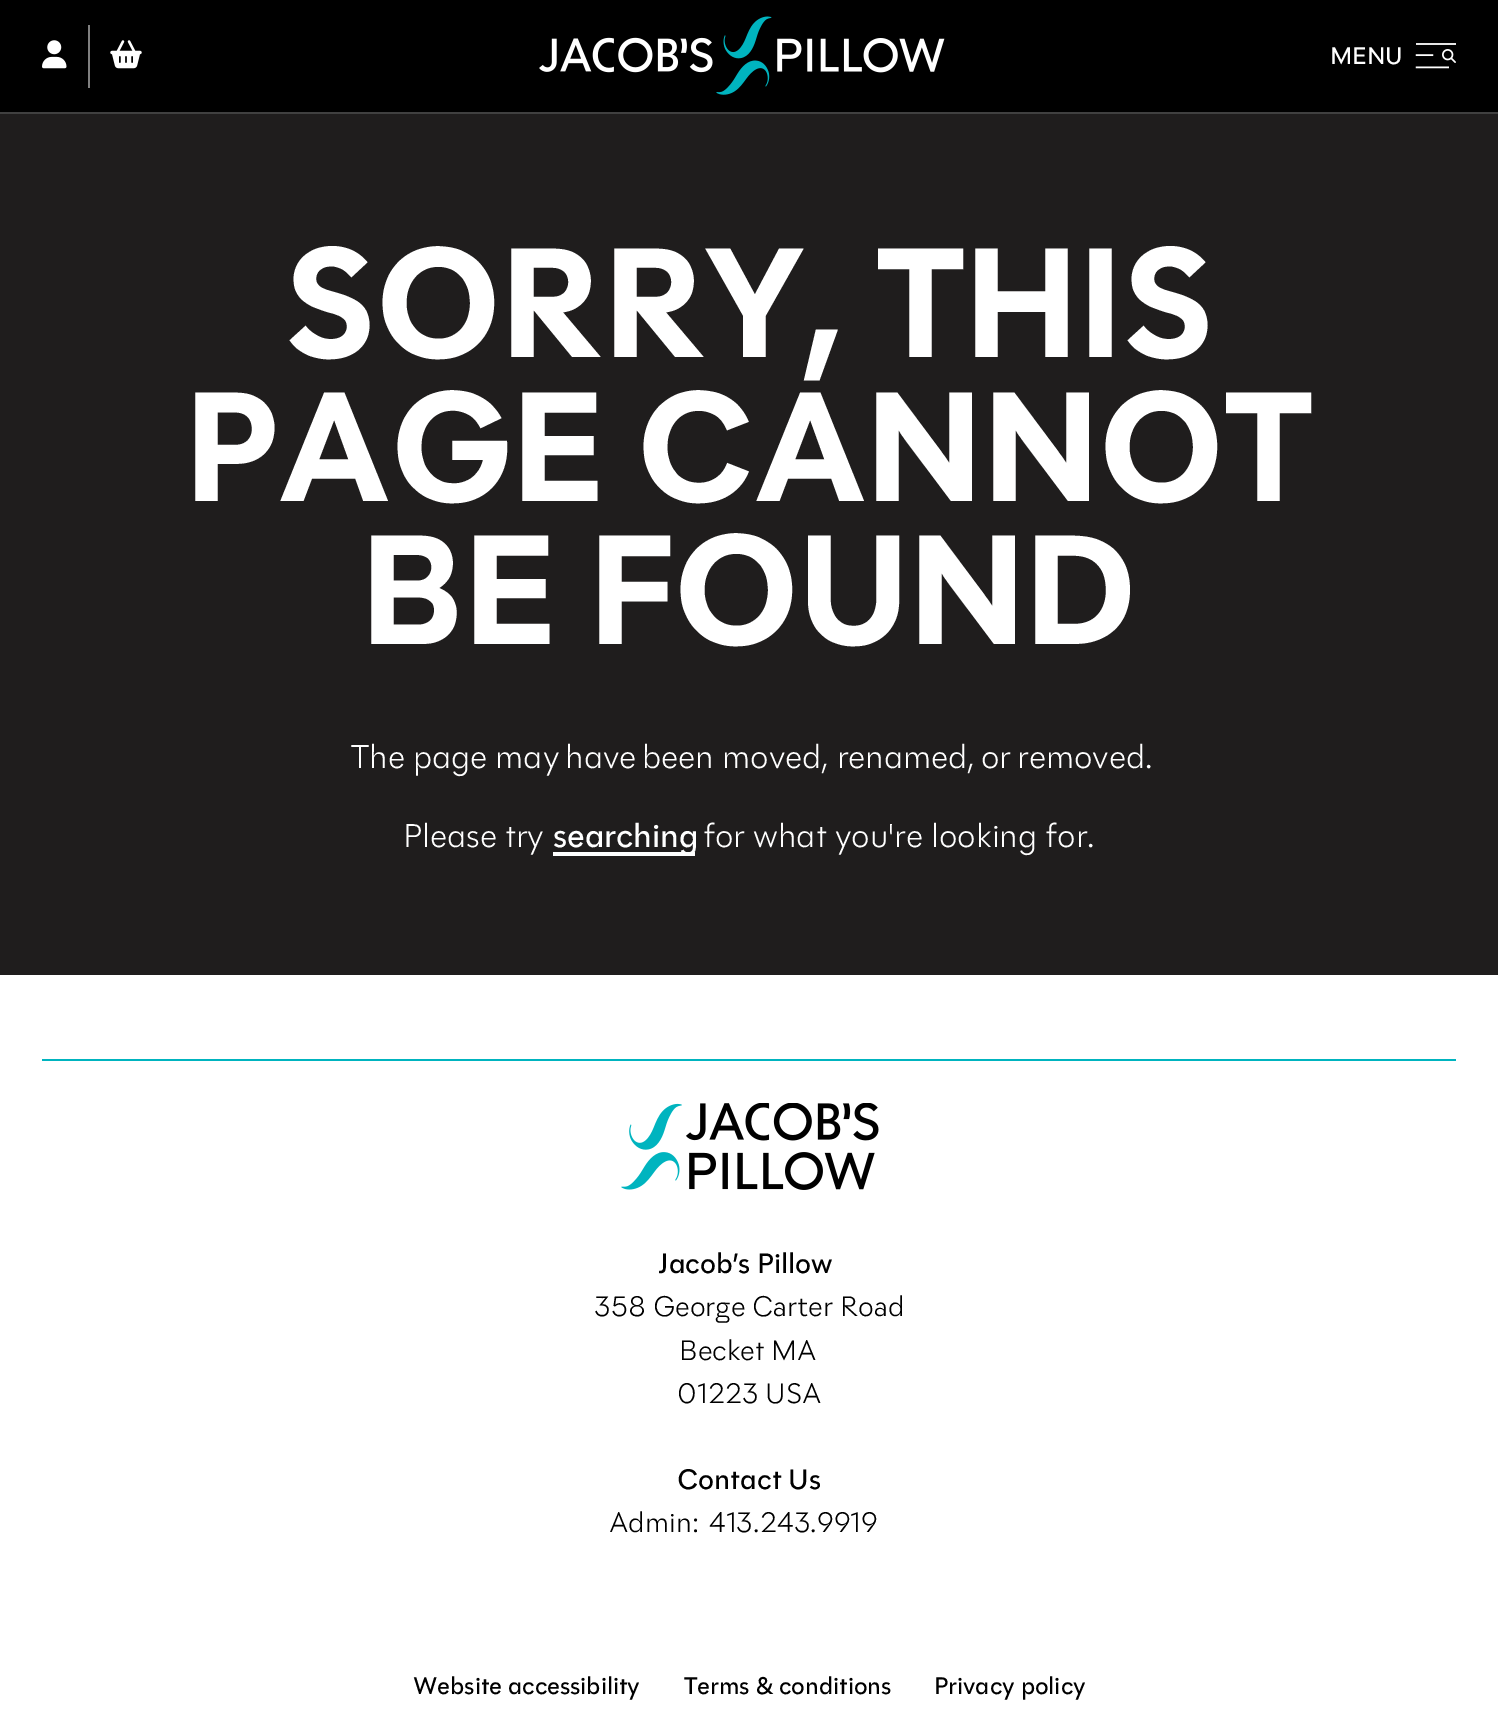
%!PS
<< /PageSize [1498 1730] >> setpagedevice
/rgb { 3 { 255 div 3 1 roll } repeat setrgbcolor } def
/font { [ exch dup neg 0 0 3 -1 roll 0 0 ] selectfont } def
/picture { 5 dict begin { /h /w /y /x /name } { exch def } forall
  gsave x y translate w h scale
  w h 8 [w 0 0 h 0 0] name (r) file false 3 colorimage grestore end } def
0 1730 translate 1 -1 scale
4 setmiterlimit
255 255 255 rgb
0 0 1498 1730 rectfill
[
  [0 0 1498 112 0 0 0]
  [0 112 1498 2 64 64 64]
  [88 25 2 63 128 128 128]
] { aload pop rgb rectfill } forall
(img/1.rgb) 42 40 25 29 picture
(img/2.rgb) 110 40 32 29 picture
(img/3.rgb) 539 16 406 79 picture
(img/4.rgb) 1415 43 41 26 picture
[
  [0 114 1498 861 31 29 29]
  [553 852 142 4 255 255 255]
  [42 1059 1414 2 0 180 191]
] { aload pop rgb rectfill } forall
(img/5.rgb) 621 1103 258 87 picture
/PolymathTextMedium-Medium 24.5 font
255 255 255 rgb
1330 64 moveto (MENU) show
/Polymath-Bold 159.5 font
[
  [(SORRY, THIS) 284 357]
  [(PAGE CANNOT) 185 501]
  [(BE FOUND) 361 644]
] { aload pop moveto show } forall
/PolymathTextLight-Light 33.6 font
351 768 moveto (The page may) show
565 768 moveto (have) show
642 768 moveto (been moved, renamed,) show
981 768 moveto (or) show
1017 768 moveto (removed.) show
403 847 moveto (Please try) show
/PolymathTextMedium-Medium 33.6 font
553 847 moveto (searching) show
/PolymathTextLight-Light 33.6 font
703 847 moveto (for what you're looking for.) show
/PolymathTextMedium-Medium 28.75 font
0 0 0 rgb
658 1273 moveto (Jacob’s Pillow) show
/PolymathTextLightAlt-Light 28.75 font
594 1316 moveto (358 George Carter Road) show
/PolymathTextLight-Light 28.75 font
679 1360 moveto (Becket MA) show
677 1403 moveto (01223 USA) show
/PolymathTextMedium-Medium 28.75 font
677 1489 moveto (Contact Us) show
/PolymathTextLight-Light 28.75 font
609 1532 moveto 3 0 32 (Admin: 413.243.9919) widthshow
/PolymathTextMedium-Medium 24.5 font
[
  [(Website accessibility) 413 1694]
  [(Terms & conditions) 684 1694]
  [(Privacy policy) 934 1694]
] { aload pop moveto show } forall
showpage
